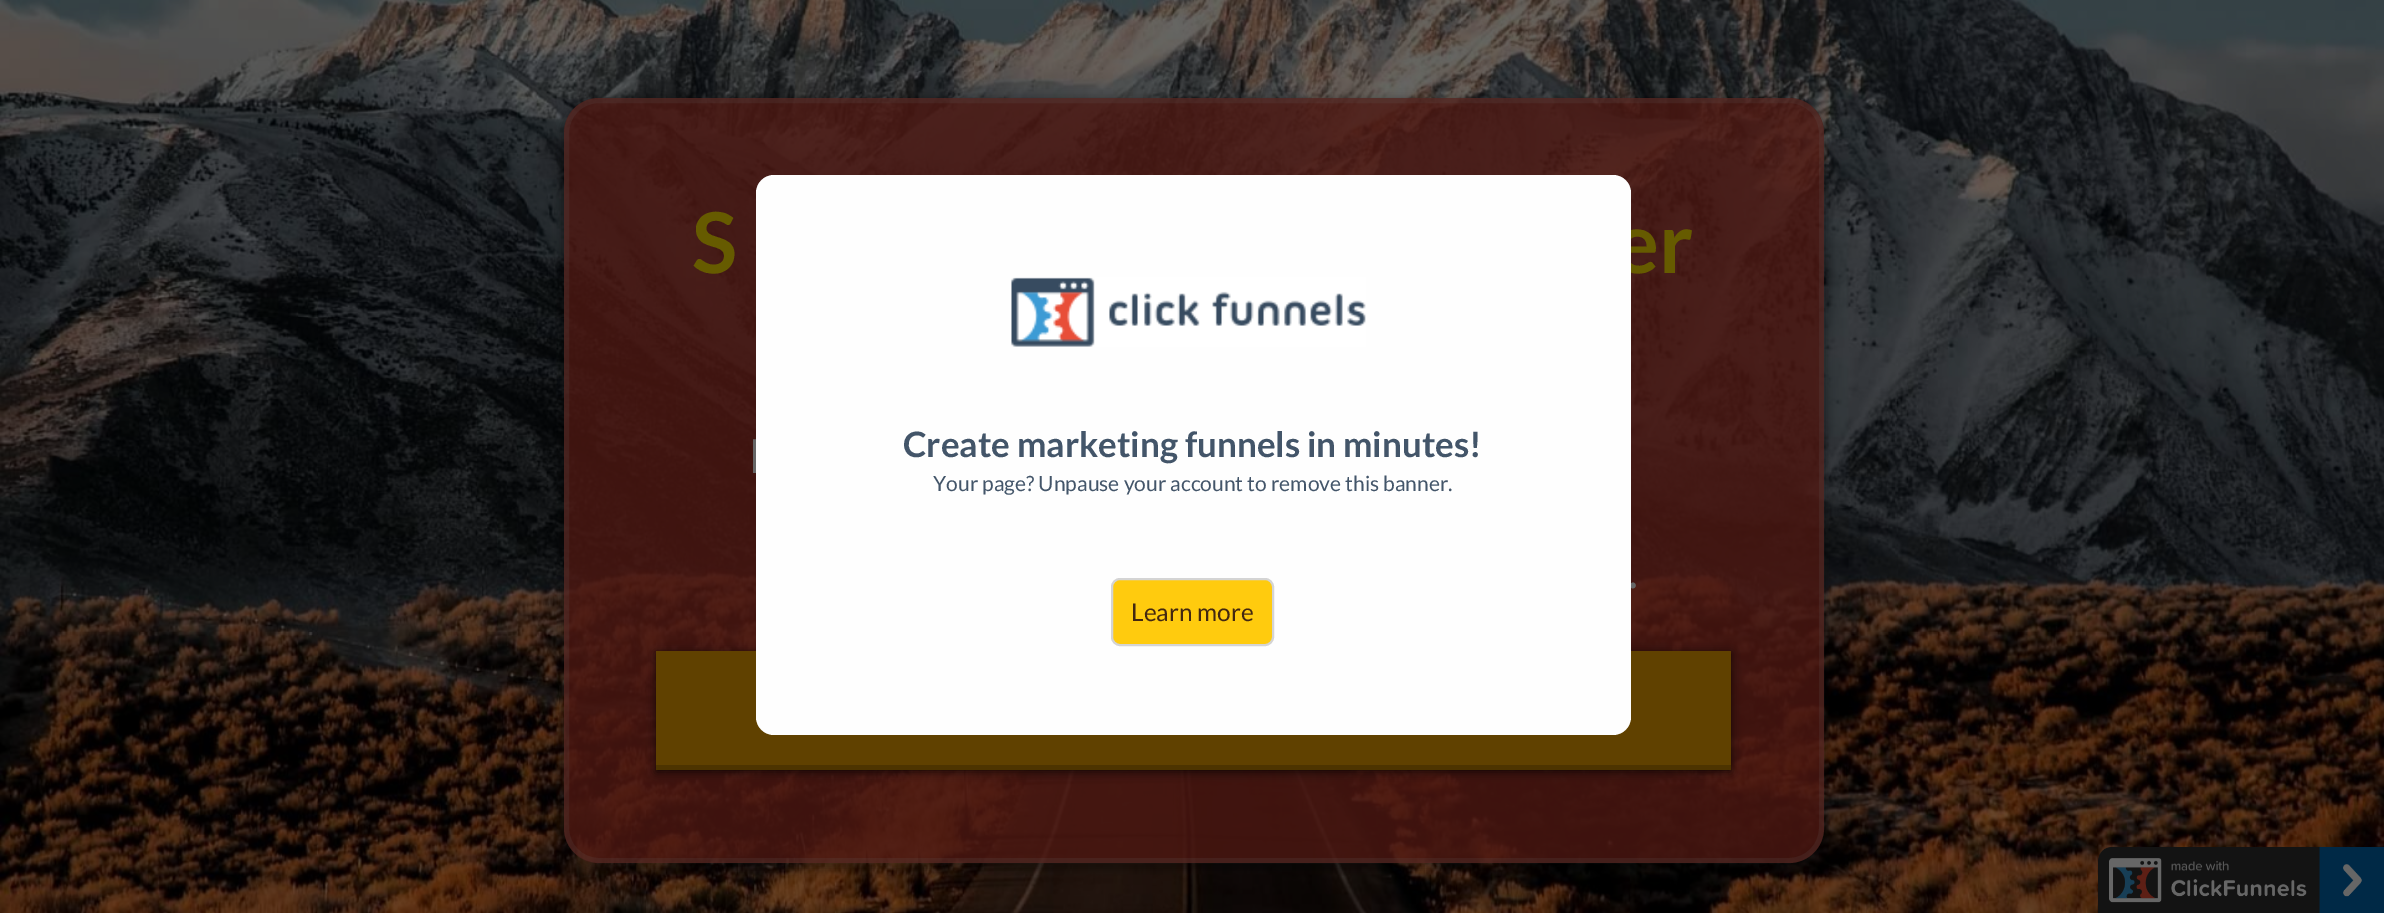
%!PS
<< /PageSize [2384 913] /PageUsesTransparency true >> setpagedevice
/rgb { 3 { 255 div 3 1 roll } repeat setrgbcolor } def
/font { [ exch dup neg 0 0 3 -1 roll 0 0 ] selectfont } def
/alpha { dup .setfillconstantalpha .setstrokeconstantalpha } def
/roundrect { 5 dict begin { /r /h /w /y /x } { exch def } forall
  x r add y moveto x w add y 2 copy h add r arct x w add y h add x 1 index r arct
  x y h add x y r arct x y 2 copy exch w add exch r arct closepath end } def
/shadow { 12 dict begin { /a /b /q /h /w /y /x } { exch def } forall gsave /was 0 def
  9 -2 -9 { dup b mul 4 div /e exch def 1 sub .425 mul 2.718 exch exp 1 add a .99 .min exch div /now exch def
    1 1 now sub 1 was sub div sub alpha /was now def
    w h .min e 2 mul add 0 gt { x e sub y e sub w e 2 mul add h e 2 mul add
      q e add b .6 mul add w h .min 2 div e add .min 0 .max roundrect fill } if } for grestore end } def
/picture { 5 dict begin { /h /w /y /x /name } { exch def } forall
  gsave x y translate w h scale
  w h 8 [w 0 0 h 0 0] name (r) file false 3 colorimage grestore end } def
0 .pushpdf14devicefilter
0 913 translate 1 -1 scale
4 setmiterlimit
255 255 255 rgb
0 0 2384 913 rectfill
(img/1.rgb) 0 0 2384 913 picture
gsave
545 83 moveto 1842 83 lineto 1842 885 lineto 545 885 lineto closepath 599 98 moveto 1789 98 lineto 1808.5 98 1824 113.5 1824 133 curveto 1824 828 lineto 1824 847.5 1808.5 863 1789 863 curveto 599 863 lineto 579.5 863 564 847.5 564 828 curveto 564 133 lineto 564 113.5 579.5 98 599 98 curveto closepath eoclip newpath
0 0 0 rgb
560 98 1267 772 39 4.5 0.3 shadow
grestore
0.8 alpha
77 23 17 rgb
564 98 1260 765 35 roundrect fill
0.15 alpha
102 102 102 rgb
5 setlinewidth
566.5 100.5 1255 760 32.5 roundrect stroke
1 alpha
0 0 0 rgb
656 653 1075 119 0 4.5 0.7 shadow
96 65 0 rgb
656 651 1075 114 rectfill
77 52 0 rgb
656 765 1075 5 rectfill
(img/3.rgb) 2098 847 286 66 picture
/Lato-Bold 84 font
102 91 0 rgb
692 273 moveto (S) show
1614 273 moveto (er) show
/Lato-Regular 47 font
102 102 102 rgb
748 473 moveto (I) show
1628 588 moveto (.) show
254 254 254 rgb
756 175 875 560 18 roundrect fill
(img/2.rgb) 1011 277 355 70 picture
/Lato-Bold 35 font
67 85 105 rgb
903 457 moveto (Create marketing funnels in minutes!) show
/Lato-Regular 21 font
933 491 moveto (Your page? Unpause your account to remove this banner.) show
255 203 14 rgb
1112 579 161 66 8 roundrect gsave fill grestore
212 212 212 rgb
2 setlinewidth
stroke
/Lato-Regular 24.5 font
67 40 17 rgb
1131 621 moveto (Learn more) show
.poppdf14devicefilter showpage
